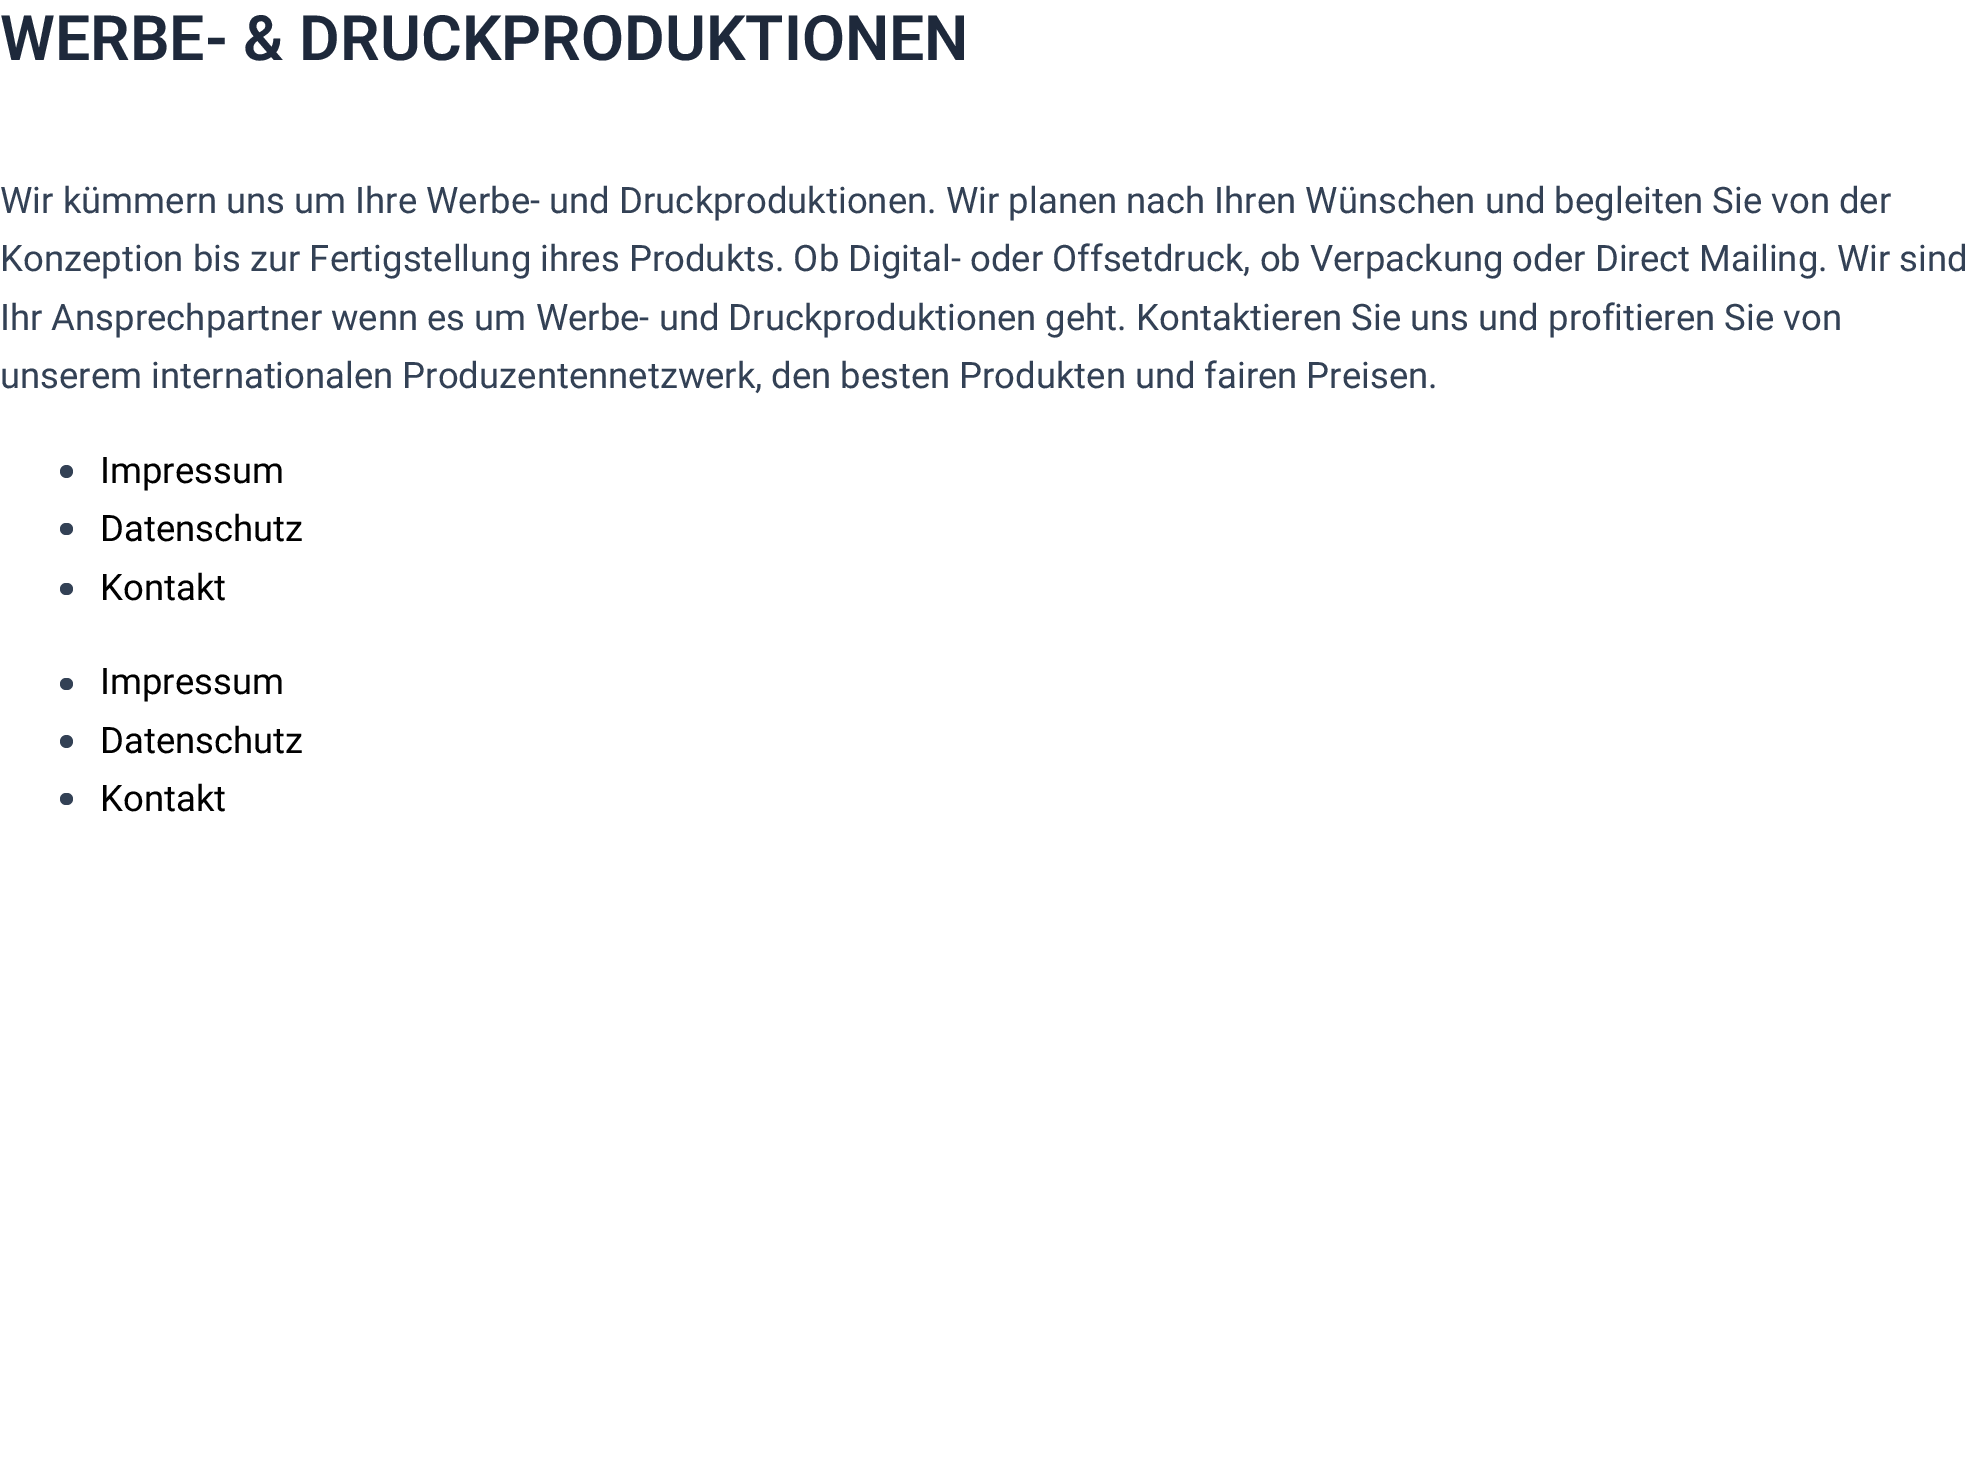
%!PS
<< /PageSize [1968 1466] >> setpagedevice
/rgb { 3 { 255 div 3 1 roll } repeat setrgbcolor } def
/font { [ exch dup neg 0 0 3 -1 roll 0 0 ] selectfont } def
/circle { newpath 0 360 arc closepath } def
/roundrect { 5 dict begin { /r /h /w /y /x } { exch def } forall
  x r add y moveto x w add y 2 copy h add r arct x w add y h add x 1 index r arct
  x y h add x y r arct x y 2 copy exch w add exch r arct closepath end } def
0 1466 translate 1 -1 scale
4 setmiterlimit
255 255 255 rgb
0 0 1968 1466 rectfill
51 65 85 rgb
66.5 471.5 6.5 circle fill
60 523 13 12 6 roundrect fill
60 583 13 12 6 roundrect fill
60 678 13 12 6 roundrect fill
66.5 741.5 6.5 circle fill
60 793 13 12 6 roundrect fill
/Roboto-SemiBold 62.5 font
30 41 59 rgb
0 60 moveto (WERBE- & DRUCKPRODUKTIONEN) show
/Roboto-Regular 36.48 font
51 65 85 rgb
[
  [(Wir kümmern uns um Ihre Werbe- und Druckproduktionen. Wir planen nach Ihren Wünschen und begleiten Sie von der) 0 213]
  [(Konzeption bis zur Fertigstellung ihres Produkts. Ob Digital- oder Offsetdruck, ob Verpackung oder Direct Mailing. Wir sind) 0 271]
  [(Ihr Ansprechpartner wenn es um Werbe- und Druckproduktionen geht. Kontaktieren Sie uns und profitieren Sie von) 0 330]
] { aload pop moveto show } forall
0 388 moveto -0.25 0 32 (unserem internationalen Produzentennetzwerk, den besten Produkten und fairen Preisen.) widthshow
0 0 0 rgb
[
  [(Impressum) 100 483]
  [(Datenschutz) 100 541]
  [(Kontakt) 100 600]
  [(Impressum) 100 694]
  [(Datenschutz) 100 753]
  [(Kontakt) 100 811]
] { aload pop moveto show } forall
showpage
